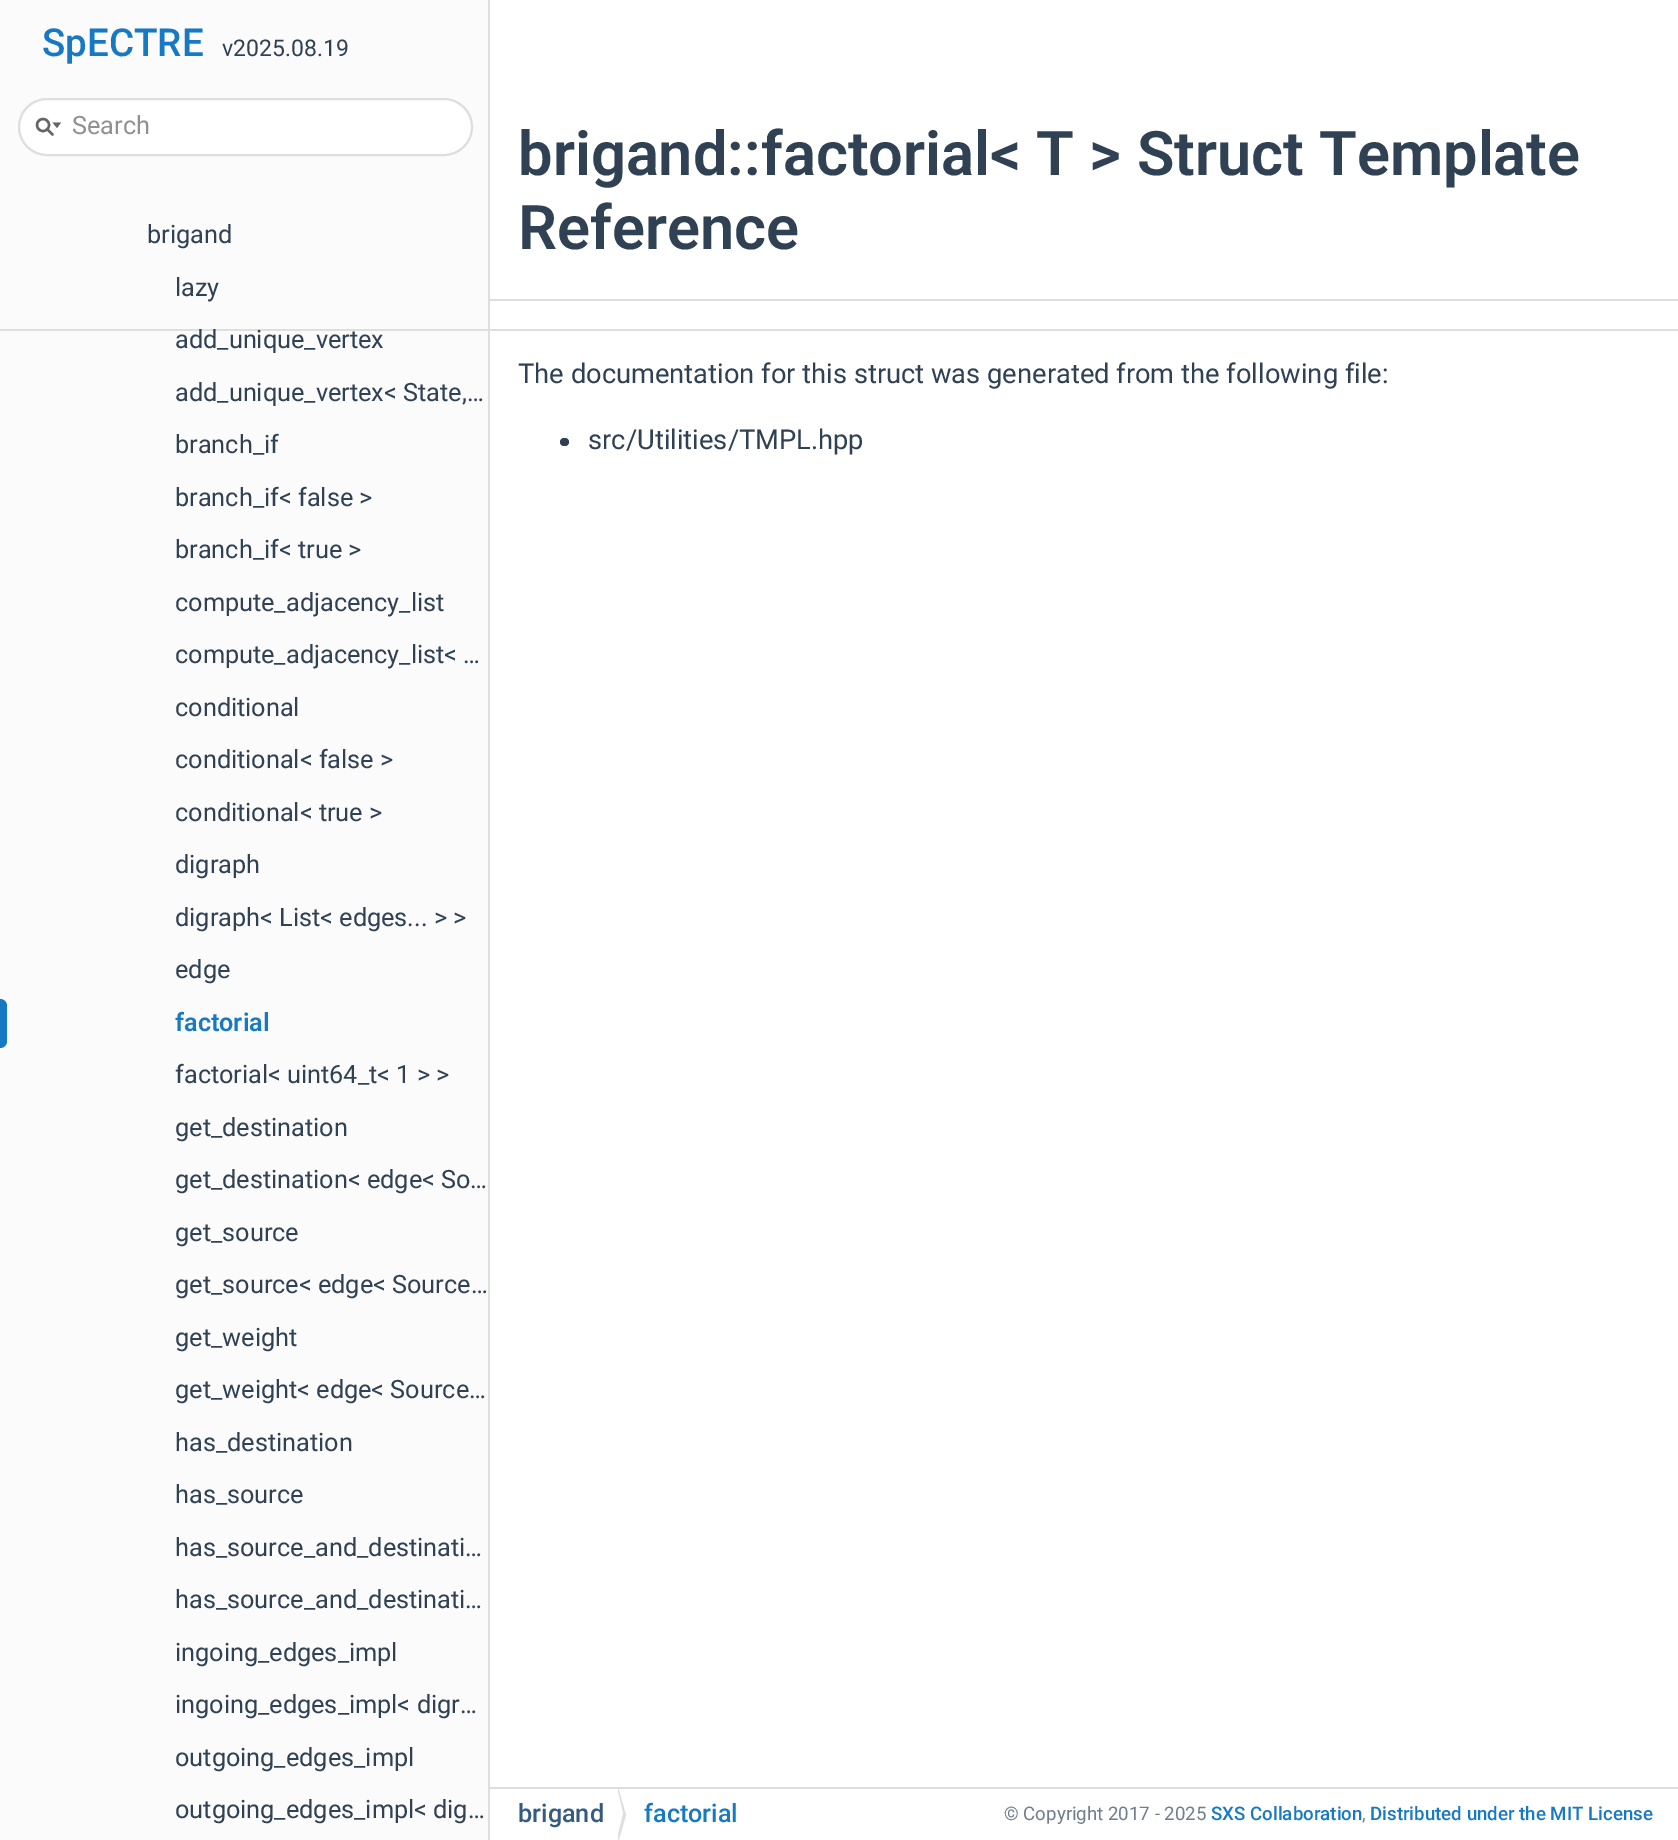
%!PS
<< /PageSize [1678 1840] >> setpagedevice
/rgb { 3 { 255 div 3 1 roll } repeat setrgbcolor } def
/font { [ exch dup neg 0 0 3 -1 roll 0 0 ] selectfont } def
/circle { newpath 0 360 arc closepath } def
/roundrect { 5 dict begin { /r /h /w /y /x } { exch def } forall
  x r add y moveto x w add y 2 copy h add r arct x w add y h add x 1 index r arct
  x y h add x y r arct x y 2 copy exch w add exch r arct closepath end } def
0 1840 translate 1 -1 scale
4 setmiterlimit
255 255 255 rgb
0 0 1678 1840 rectfill
251 251 251 rgb
0 0 488 1840 rectfill
255 255 255 rgb
19 99 453 56 28 roundrect gsave fill grestore
222 222 222 rgb
2 setlinewidth
stroke
101 101 101 rgb
2.4 setlinewidth
43 125 6 circle stroke
52.5 122.5 moveto 57 128 lineto 61 122.5 lineto closepath fill
1 setlinecap
47.5 129.5 moveto 52.5 134.5 lineto stroke
23 121 196 rgb
0 999 moveto 4 999 7 1002 7 1006 curveto 7 1041 lineto 7 1045 4 1048 0 1048 curveto closepath fill
222 222 222 rgb
488 -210 moveto 488 1421 lineto 488 210 lineto 490 210 lineto 490 -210 lineto closepath fill
488 210 2 1630 rectfill
490 299 1188 2 rectfill
-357 329 moveto -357 331 lineto 775 331 lineto 518 331 lineto 518 329 lineto closepath fill
1393 331 moveto 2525 331 lineto 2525 329 lineto 1650 329 lineto 1650 331 lineto closepath fill
518 329 1132 2 rectfill
47 65 83 rgb
560 438 9 8 4 roundrect fill
222 222 222 rgb
490 1787 1188 2 rectfill
618 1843 moveto 618 1787 lineto 626 1815 lineto closepath fill
gsave
490 1789 1188 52 rectclip
255 255 255 rgb
614 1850 moveto 614 1776 lineto 623 1813 lineto closepath fill
grestore
/Roboto-Medium 38.5 font
23 121 196 rgb
42 56 moveto (SpECTRE) show
/Roboto-Regular 23 font
47 65 83 rgb
222 56 moveto (v2025.08.19) show
/Roboto-Regular 25.25 font
144 144 144 rgb
72 134 moveto (Search) show
47 65 83 rgb
[
  [(brigand) 147 243]
  [(lazy) 175 296]
  [(add_unique_vertex) 175 348]
  [(add_unique_vertex< State,…) 175 401]
  [(branch_if) 175 453]
  [(branch_if< false >) 175 506]
  [(branch_if< true >) 175 558]
  [(compute_adjacency_list) 175 611]
  [(compute_adjacency_list< …) 175 663]
  [(conditional) 175 716]
  [(conditional< false >) 175 768]
  [(conditional< true >) 175 821]
  [(digraph) 175 873]
  [(digraph< List< edges... > >) 175 926]
  [(edge) 175 978]
] { aload pop moveto show } forall
/Roboto-SemiBold 25.25 font
23 121 196 rgb
175 1031 moveto (factorial) show
/Roboto-Regular 25.25 font
47 65 83 rgb
[
  [(factorial< uint64_t< 1 > >) 175 1083]
  [(get_destination) 175 1136]
  [(get_destination< edge< So…) 175 1188]
  [(get_source) 175 1241]
  [(get_source< edge< Source…) 175 1293]
  [(get_weight) 175 1346]
  [(get_weight< edge< Source…) 175 1398]
  [(has_destination) 175 1451]
  [(has_source) 175 1503]
  [(has_source_and_destinati…) 175 1556]
  [(has_source_and_destinati…) 175 1608]
  [(ingoing_edges_impl) 175 1661]
  [(ingoing_edges_impl< digr…) 175 1713]
  [(outgoing_edges_impl) 175 1766]
  [(outgoing_edges_impl< dig…) 175 1818]
] { aload pop moveto show } forall
/Roboto-SemiBold 61.4 font
518 175 moveto (brigand::factorial< T > Struct Template) show
518 249 moveto (Reference) show
/Roboto-Regular 27.3 font
518 383 moveto (The documentation for this struct was generated from the following file:) show
588 449 moveto (src/Utilities/TMPL.hpp) show
/Roboto-Medium 25.25 font
51 92 128 rgb
518 1822 moveto (brigand) show
23 121 196 rgb
644 1822 moveto (factorial) show
/Roboto-Regular 18.7 font
111 126 142 rgb
1004 1820 moveto (© Copyright 2017 - 2025) show
/Roboto-Medium 18.7 font
23 121 196 rgb
1211 1820 moveto (SXS Collaboration) show
/Roboto-Regular 18.7 font
111 126 142 rgb
1362 1820 moveto (,) show
/Roboto-Medium 18.7 font
23 121 196 rgb
1370 1820 moveto (Distributed under the MIT License) show
showpage
